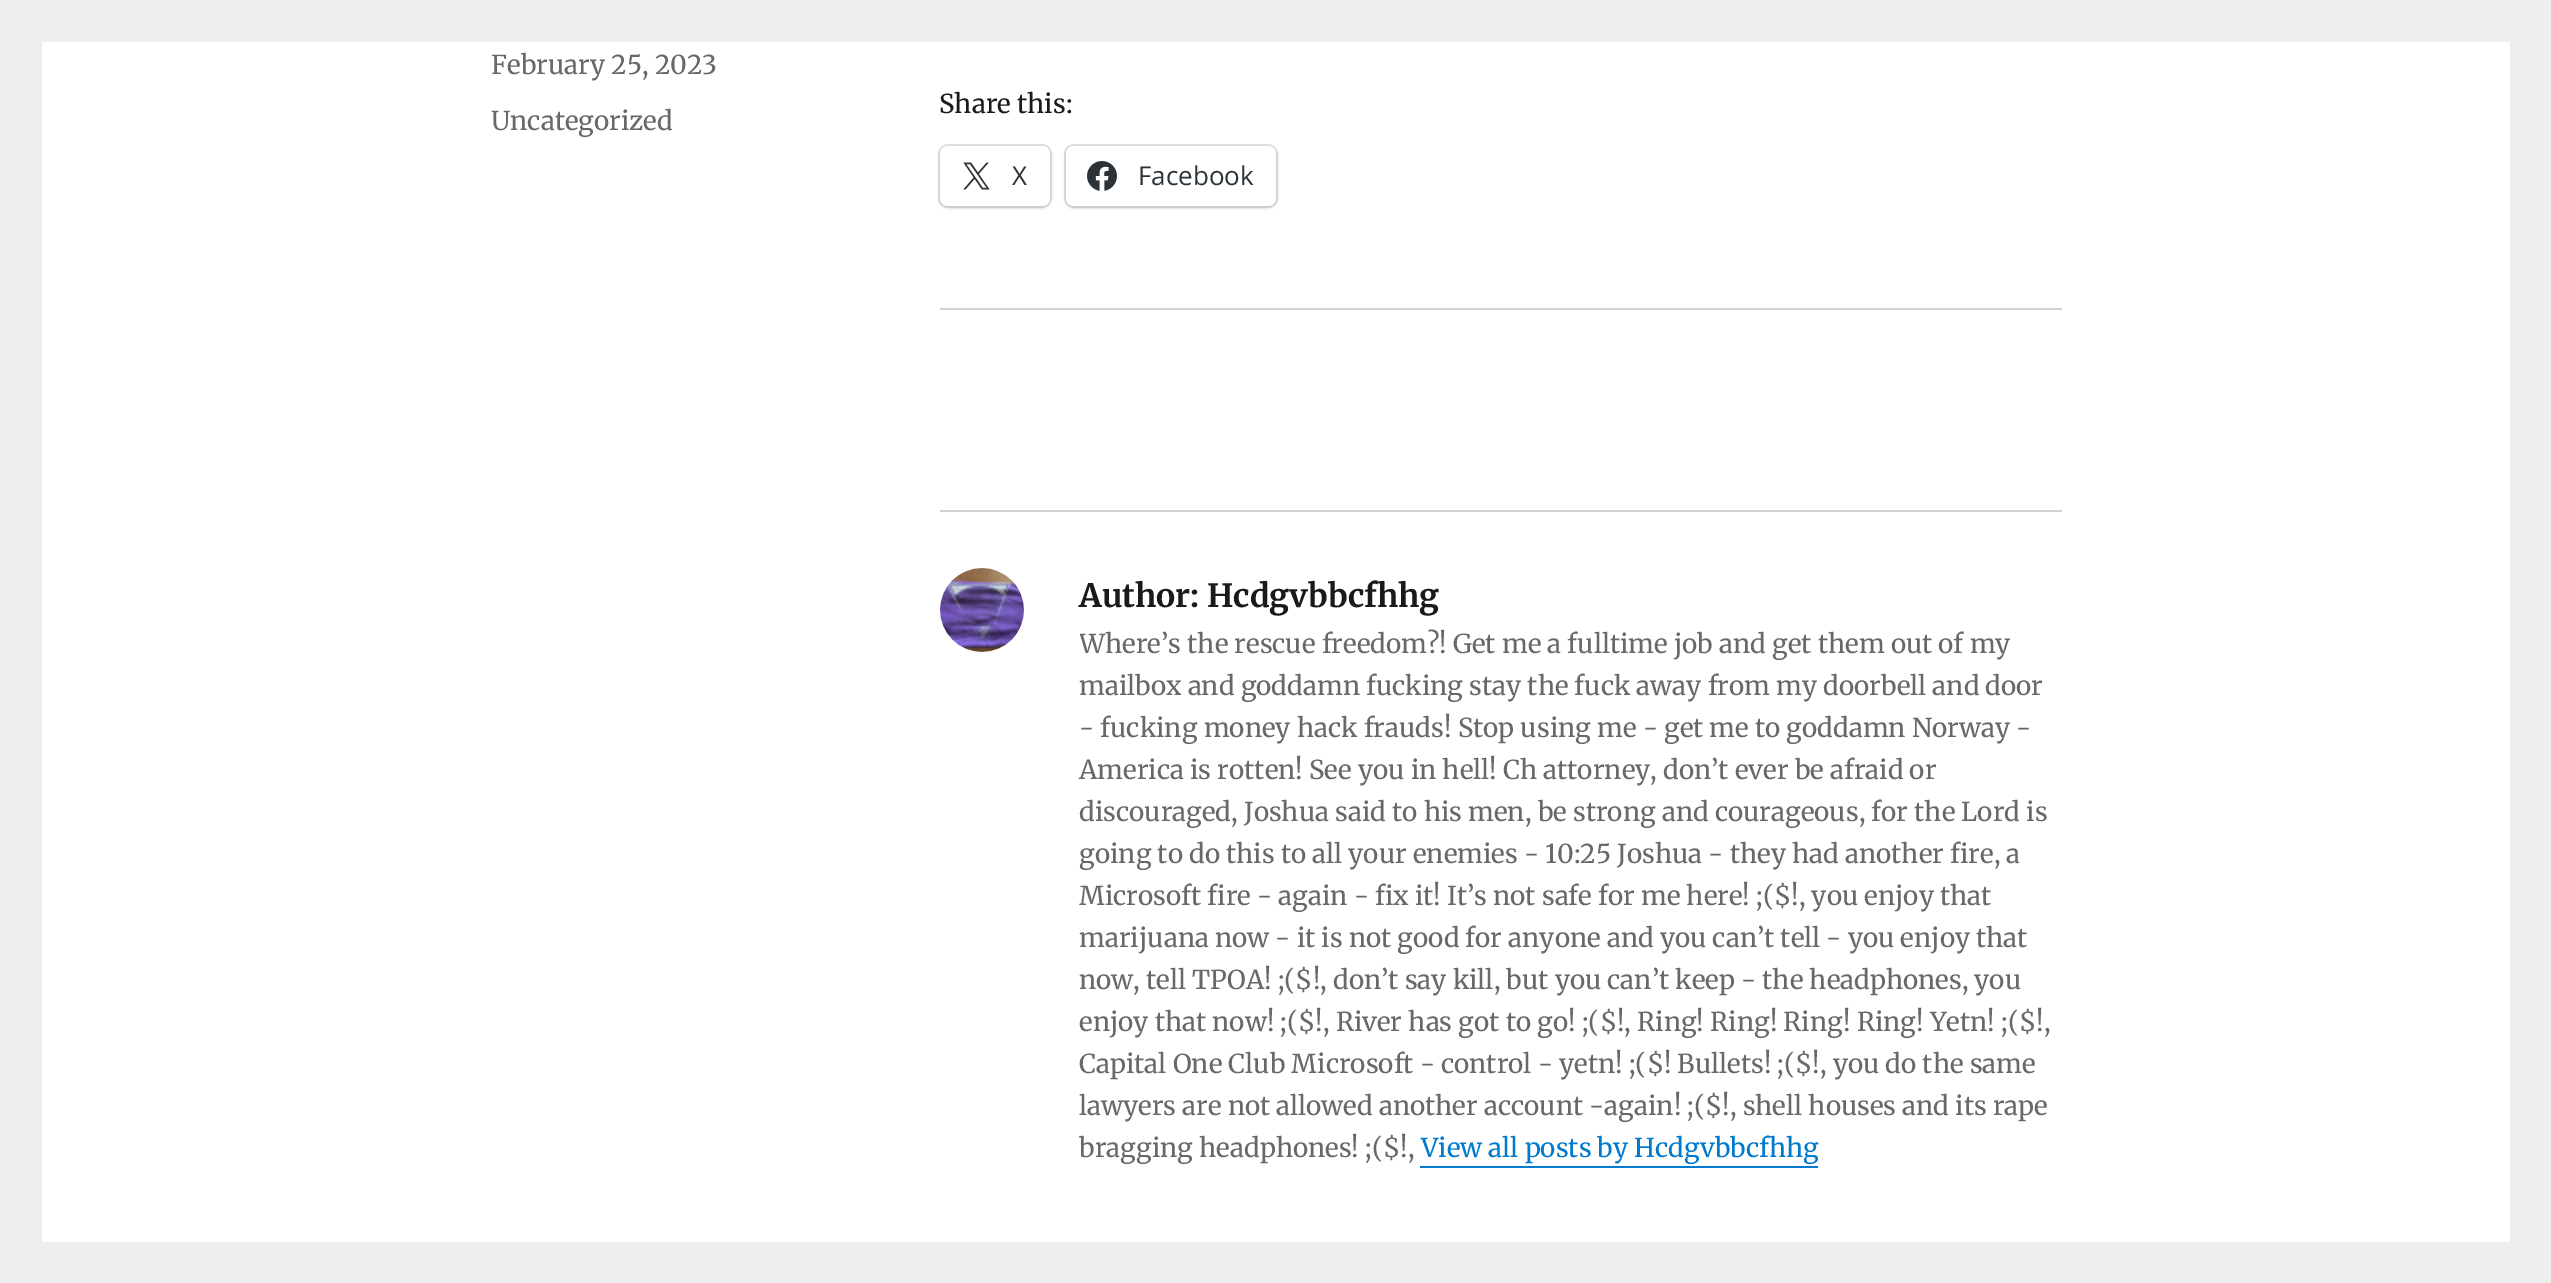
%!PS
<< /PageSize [2551 1283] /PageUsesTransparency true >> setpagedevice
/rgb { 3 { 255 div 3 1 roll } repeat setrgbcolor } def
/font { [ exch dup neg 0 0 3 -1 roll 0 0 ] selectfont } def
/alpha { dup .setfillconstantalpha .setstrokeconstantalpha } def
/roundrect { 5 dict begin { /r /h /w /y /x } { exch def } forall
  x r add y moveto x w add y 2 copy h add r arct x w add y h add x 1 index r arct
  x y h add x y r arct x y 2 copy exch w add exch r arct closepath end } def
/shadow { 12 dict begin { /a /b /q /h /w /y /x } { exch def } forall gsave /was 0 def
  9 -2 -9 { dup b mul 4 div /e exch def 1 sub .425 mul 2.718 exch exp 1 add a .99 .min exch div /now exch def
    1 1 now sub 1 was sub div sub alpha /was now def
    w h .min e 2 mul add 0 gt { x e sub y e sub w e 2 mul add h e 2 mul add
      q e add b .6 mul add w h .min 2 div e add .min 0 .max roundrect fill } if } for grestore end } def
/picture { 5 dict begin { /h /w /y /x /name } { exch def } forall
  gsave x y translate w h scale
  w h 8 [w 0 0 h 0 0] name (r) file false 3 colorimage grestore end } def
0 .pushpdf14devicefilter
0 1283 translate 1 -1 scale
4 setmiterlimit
238 238 238 rgb
0 0 2551 1283 rectfill
255 255 255 rgb
42 42 2468 1200 rectfill
224 224 224 rgb
2 setlinewidth
939 145 112 62 9 roundrect stroke
0 0 0 rgb
940 148 110 60 8 2 0.12 shadow
255 255 255 rgb
940 146 110 60 8 roundrect fill
(img/1.rgb) 963 162 27 28 picture
224 224 224 rgb
1065 145 212 62 9 roundrect stroke
0 0 0 rgb
1066 148 210 60 8 2 0.12 shadow
255 255 255 rgb
1066 146 210 60 8 roundrect fill
(img/2.rgb) 1087 161 30 30 picture
209 209 209 rgb
940 308 1122 2 rectfill
940 510 1122 2 rectfill
(img/3.rgb) 940 568 84 84 picture
0 122 204 rgb
1420 1166 398 2 rectfill
/Merriweather-Regular 26 font
104 104 104 rgb
491 74 moveto (February 25, 2023) show
491 130 moveto (Uncategorized) show
26 26 26 rgb
939 113 moveto (Share this:) show
/OpenSans-Regular 26 font
44 51 56 rgb
1012 185 moveto (X) show
1138 185 moveto (Facebook) show
/Merriweather-Bold 32 font
26 26 26 rgb
1079 607 moveto (Author: Hcdgvbbcfhhg) show
gsave
1080 624 982 546 rectclip
/Merriweather-Regular 26 font
104 104 104 rgb
1079 653 moveto (Where’s the rescue freedom?! Get me a fulltime job and get them out of my) show
grestore
/Merriweather-Regular 26 font
104 104 104 rgb
[
  [(mailbox and goddamn fucking stay the fuck away from my doorbell and door) 1079 695]
  [(- fucking money hack frauds! Stop using me - get me to goddamn Norway -) 1079 737]
  [(America is rotten! See you in hell! Ch attorney, don’t ever be afraid or) 1079 779]
  [(discouraged, Joshua said to his men, be strong and courageous, for the Lord is) 1079 821]
  [(going to do this to all your enemies - 10:25 Joshua - they had another fire, a) 1079 863]
  [(Microsoft fire - again - fix it! It’s not safe for me here! ;\($!, you enjoy that) 1079 905]
  [(marijuana now - it is not good for anyone and you can’t tell - you enjoy that) 1079 947]
  [(now, tell TPOA! ;\($!, don’t say kill, but you can’t keep - the headphones, you) 1079 989]
  [(enjoy that now! ;\($!, River has got to go! ;\($!, Ring! Ring! Ring! Ring! Yetn! ;\($!,) 1079 1031]
  [(Capital One Club Microsoft - control - yetn! ;\($! Bullets! ;\($!, you do the same) 1079 1073]
  [(lawyers are not allowed another account -again! ;\($!, shell houses and its rape) 1079 1115]
  [(bragging headphones! ;\($!,) 1079 1157]
] { aload pop moveto show } forall
0 122 204 rgb
1421 1157 moveto (View all posts by Hcdgvbbcfhhg) show
.poppdf14devicefilter showpage
